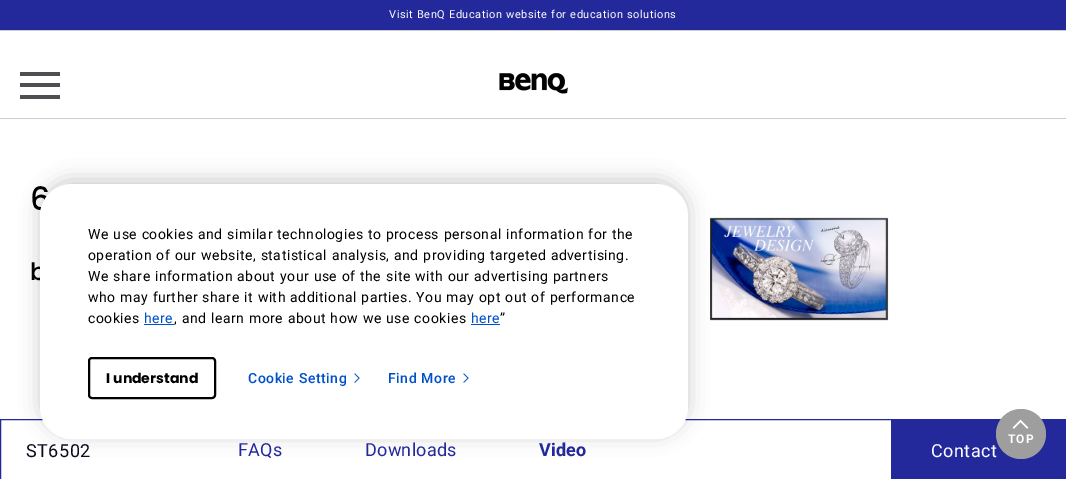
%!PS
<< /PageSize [1066 479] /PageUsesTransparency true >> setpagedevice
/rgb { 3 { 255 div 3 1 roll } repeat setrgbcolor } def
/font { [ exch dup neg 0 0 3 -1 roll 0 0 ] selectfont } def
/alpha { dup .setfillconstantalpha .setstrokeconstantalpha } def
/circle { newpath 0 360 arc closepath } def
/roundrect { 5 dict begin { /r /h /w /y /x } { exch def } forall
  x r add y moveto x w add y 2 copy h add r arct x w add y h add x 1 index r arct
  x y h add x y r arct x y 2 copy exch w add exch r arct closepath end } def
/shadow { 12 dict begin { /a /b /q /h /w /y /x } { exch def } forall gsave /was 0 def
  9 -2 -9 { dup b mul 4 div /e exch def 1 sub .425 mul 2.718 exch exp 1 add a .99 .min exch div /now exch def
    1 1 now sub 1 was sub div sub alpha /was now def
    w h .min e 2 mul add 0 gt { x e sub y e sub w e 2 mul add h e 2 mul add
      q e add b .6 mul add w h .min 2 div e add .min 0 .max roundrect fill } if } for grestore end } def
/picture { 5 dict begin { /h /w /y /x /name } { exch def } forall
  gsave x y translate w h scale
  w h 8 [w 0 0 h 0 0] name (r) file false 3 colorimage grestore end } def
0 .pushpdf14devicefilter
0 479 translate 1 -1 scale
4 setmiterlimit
255 255 255 rgb
0 0 1066 479 rectfill
[
  [0 0 1066 30 35 41 155]
  [0 30 1066 1 204 204 204]
  [0 118 1066 1 204 204 204]
  [20 72 40 4 77 79 82]
  [20 83 40 4 77 79 82]
  [20 95 40 4 77 79 82]
] { aload pop rgb rectfill } forall
(img/1.rgb) 499 73 69 21 picture
(img/2.rgb) 710 217 179 104 picture
35 41 155 rgb
0.5 419.5 1065 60 rectstroke
891 420 174 59 rectfill
0 0 0 rgb
40 180 648 255 32 10 0.2 shadow
/Roboto-Regular 11 font
255 255 255 rgb
389 18 moveto 0.5 0 32 0.5 0 (Visit BenQ Education website for education solutions) awidthshow
/Poppins-Medium 32 font
0 0 0 rgb
30 210 moveto 0.5 0 32 0.5 0 (6) awidthshow
/Poppins-Medium 24 font
30 280 moveto 0.5 0 (b) ashow
/Roboto-Regular 18 font
14 7 30 rgb
26 457 moveto 0.5 0 (ST6502) ashow
35 41 155 rgb
238 456 moveto 0.25 0 (FAQs) ashow
365 456 moveto 0.25 0 (Downloads) ashow
/Roboto-Bold 18 font
539 456 moveto 0.25 0 (Video) ashow
/Roboto-Regular 18 font
255 255 255 rgb
931 457 moveto 0.5 0 32 0.5 0 (Contact) awidthshow
40 184 648 255 32 roundrect fill
/Roboto-Regular 14 font
0 0 0 rgb
88 239 moveto 0.5 0 32 0.5 0 (We use cookies and similar technologies to process personal information for the) awidthshow
88 260 moveto 0.5 0 32 0.5 0 (operation of our website, statistical analysis, and providing targeted advertising.) awidthshow
88 281 moveto 0.5 0 32 0.5 0 (We share information about your use of the site with our advertising partners) awidthshow
88 302 moveto 0.5 0 32 0.5 0 (who may further share it with additional parties. You may opt out of performance) awidthshow
88 323 moveto 0.5 0 (cookies) ashow
0 80 199 rgb
144 323 moveto 0.5 0 (here) ashow
144 324 30 1 rectfill
0 0 0 rgb
174 323 moveto 0.5 0 32 0.5 0 (, and learn more about how we use cookies) awidthshow
0 80 199 rgb
471 323 moveto 0.5 0 (here) ashow
471 324 29 1 rectfill
0 0 0 rgb
500 323 moveto 0.5 0 (”) ashow
2 setlinewidth
89 358 126 40 3 roundrect stroke
/Poppins-Bold 14 font
106 383 moveto (I understand) show
/Roboto-Medium 14 font
0 80 199 rgb
248 383 moveto 0.5 0 32 0.5 0 (Cookie Setting) awidthshow
(img/3.rgb) 354 373 6 10 picture
388 383 moveto 0.5 0 32 0.5 0 (Find More) awidthshow
(img/3.rgb) 463 373 6 10 picture
158 158 158 rgb
1021 434 25 circle fill
(img/4.rgb) 1012 419 17 10 picture
/Roboto-Bold 12 font
255 255 255 rgb
1008 443 moveto 1 0 (TOP) ashow
.poppdf14devicefilter showpage
